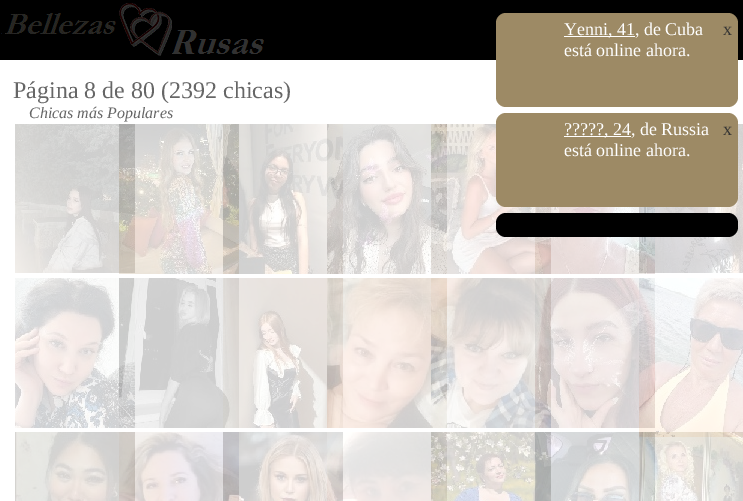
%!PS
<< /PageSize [743 501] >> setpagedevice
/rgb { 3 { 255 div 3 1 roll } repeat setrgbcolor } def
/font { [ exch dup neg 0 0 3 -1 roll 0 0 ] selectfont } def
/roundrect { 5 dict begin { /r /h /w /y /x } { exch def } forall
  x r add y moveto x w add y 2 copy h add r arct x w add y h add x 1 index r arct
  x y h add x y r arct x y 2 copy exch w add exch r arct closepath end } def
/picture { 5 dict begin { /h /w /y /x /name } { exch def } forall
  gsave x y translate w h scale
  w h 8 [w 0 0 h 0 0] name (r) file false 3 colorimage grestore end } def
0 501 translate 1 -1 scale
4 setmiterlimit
255 255 255 rgb
0 0 743 501 rectfill
0 0 0 rgb
0 0 743 60 rectfill
(img/1.rgb) 1 3 263 53 picture
(img/2.rgb) 15 124 120 149 picture
(img/3.rgb) 119 124 120 150 picture
(img/4.rgb) 223 124 120 150 picture
(img/5.rgb) 327 124 120 150 picture
(img/6.rgb) 431 124 120 150 picture
(img/7.rgb) 535 207 120 67 picture
(img/8.rgb) 639 124 104 149 picture
(img/9.rgb) 15 278 120 150 picture
(img/10.rgb) 119 278 120 150 picture
(img/11.rgb) 223 278 120 150 picture
(img/12.rgb) 327 278 120 150 picture
(img/13.rgb) 431 278 120 150 picture
(img/14.rgb) 535 278 120 150 picture
(img/15.rgb) 639 278 104 159 picture
(img/16.rgb) 15 432 120 69 picture
(img/17.rgb) 119 432 120 69 picture
(img/18.rgb) 223 432 120 69 picture
(img/19.rgb) 327 432 120 69 picture
(img/20.rgb) 431 432 120 69 picture
(img/21.rgb) 535 432 120 69 picture
(img/22.rgb) 639 432 104 69 picture
157 138 101 rgb
496 13 242 94 10 roundrect fill
255 255 255 rgb
564 36 71 1 rectfill
157 138 101 rgb
496 113 242 94 10 roundrect fill
255 255 255 rgb
564 136 67 1 rectfill
0 0 0 rgb
496 213 242 24 10 roundrect fill
/LiberationSerif-Regular 24 font
102 102 102 rgb
13 98 moveto (Página 8 de 80 \(2392 chicas\)) show
/LiberationSerif-Italic 16 font
29 118 moveto (Chicas más Populares) show
/LiberationSerif-Regular 18 font
255 255 255 rgb
564 35 moveto (Yenni, 41, de Cuba) show
51 51 51 rgb
723 35 moveto (x) show
255 255 255 rgb
564 56 moveto (está online ahora.) show
564 135 moveto (?????, 24, de Russia) show
51 51 51 rgb
723 135 moveto (x) show
255 255 255 rgb
564 156 moveto (está online ahora.) show
showpage
